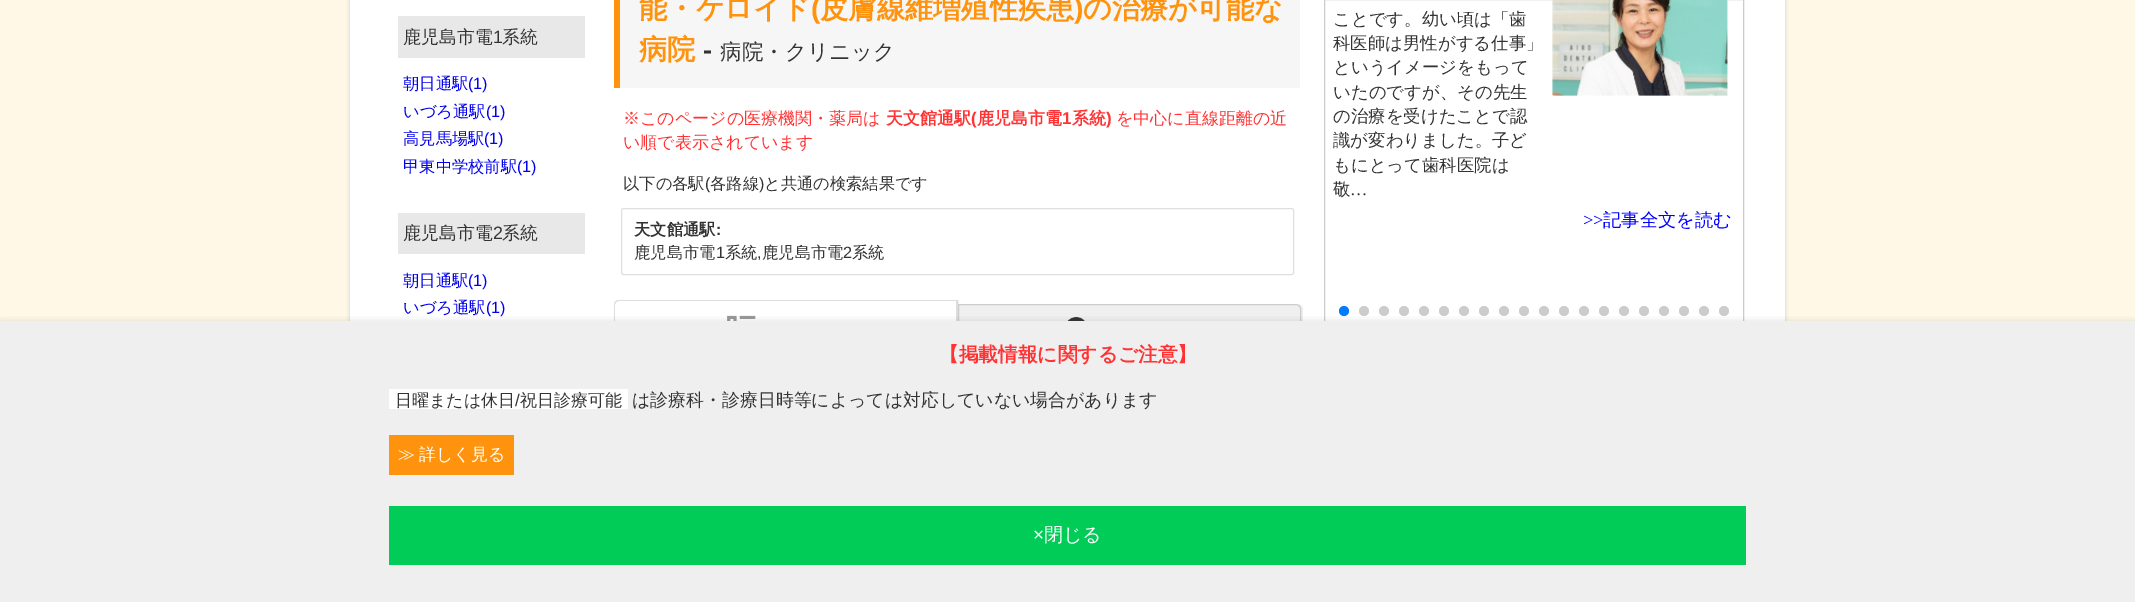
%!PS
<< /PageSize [2135 602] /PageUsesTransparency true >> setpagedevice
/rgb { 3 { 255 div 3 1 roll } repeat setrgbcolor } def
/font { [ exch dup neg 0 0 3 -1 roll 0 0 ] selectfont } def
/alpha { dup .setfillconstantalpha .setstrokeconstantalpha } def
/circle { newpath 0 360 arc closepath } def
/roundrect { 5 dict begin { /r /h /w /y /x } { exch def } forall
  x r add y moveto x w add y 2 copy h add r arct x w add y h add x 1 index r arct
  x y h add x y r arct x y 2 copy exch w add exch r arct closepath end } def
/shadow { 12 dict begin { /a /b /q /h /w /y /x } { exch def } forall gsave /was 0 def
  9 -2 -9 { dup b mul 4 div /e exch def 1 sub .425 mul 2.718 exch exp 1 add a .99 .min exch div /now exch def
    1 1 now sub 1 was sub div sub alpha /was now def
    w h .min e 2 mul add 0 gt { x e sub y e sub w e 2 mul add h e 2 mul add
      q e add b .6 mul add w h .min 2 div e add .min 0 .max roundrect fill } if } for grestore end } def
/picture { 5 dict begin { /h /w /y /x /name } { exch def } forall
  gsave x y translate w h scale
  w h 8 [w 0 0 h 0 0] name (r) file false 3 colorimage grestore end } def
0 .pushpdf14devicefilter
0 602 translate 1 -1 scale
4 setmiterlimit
255 248 231 rgb
0 0 2135 602 rectfill
204 204 204 rgb
350 -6 1435 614 0 2 1 shadow
[
  [350 0 1435 321 255 255 255]
  [398 16 187 42 232 232 232]
  [398 213 187 41 232 232 232]
  [620 0 680 88 246 246 246]
  [614 0 6 88 255 147 13]
] { aload pop rgb rectfill } forall
223 223 223 rgb
621.5 208.5 672 66 2 roundrect stroke
238 238 238 rgb
615 359 moveto 959 359 lineto 959 300 lineto 958 300 lineto 958 359 lineto closepath fill
221 221 221 rgb
619 300 moveto 958 300 lineto 958 359 lineto 614 359 lineto 614 305 lineto 614 302 616 300 619 300 curveto closepath 619 301 moveto 956 301 lineto 956 359 lineto 615 359 lineto 615 305 lineto 615 303 617 301 619 301 curveto closepath eofill
(img/1.rgb) 727 315 29 6 picture
238 238 238 rgb
1301 356 moveto 1303 356 lineto 1303 309 lineto 1303 306 1301 304 1298 304 curveto 1300 305 1301 307 1301 309 curveto closepath fill
239 239 239 rgb
958.5 304.5 moveto 1296 304.5 lineto 1298.5 304.5 1300.5 306.5 1300.5 309 curveto 1300.5 355.5 lineto 958.5 355.5 lineto closepath gsave fill grestore
204 204 204 rgb
stroke
(img/2.rgb) 1067 317 18 4 picture
1324.5 -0.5 419 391 rectstroke
(img/3.rgb) 1552 0 176 96 picture
0 122 255 rgb
1344 311 5 circle fill
204 204 204 rgb
1364 311 5 circle fill
1384 311 5 circle fill
1404 311 5 circle fill
1424 311 5 circle fill
1444 311 5 circle fill
1464 311 5 circle fill
1484 311 5 circle fill
1504 311 5 circle fill
1524 311 5 circle fill
1544 311 5 circle fill
1564 311 5 circle fill
1584 311 5 circle fill
1604 311 5 circle fill
1624 311 5 circle fill
1644 311 5 circle fill
1664 311 5 circle fill
1684 311 5 circle fill
1704 311 5 circle fill
1724 311 5 circle fill
51 51 51 rgb
1 329 2133 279 0 5.5 1 shadow
[
  [0 321 2135 281 239 239 239]
  [389 389 239 20 255 255 255]
  [389 435 125 40 255 147 13]
  [389 506 1357 59 0 204 87]
] { aload pop rgb rectfill } forall
/WenQuanYiZenHei-Medium 17.9 font
51 51 51 rgb
403 43 moveto (鹿児島市電) show
/LiberationSans-Regular 17.9 font
493 43 moveto (1) show
/WenQuanYiZenHei-Medium 17.9 font
502 43 moveto (系統) show
/WenQuanYiZenHei-Medium 16.25 font
0 0 238 rgb
403 89 moveto (朝日通駅) show
/LiberationSans-Regular 16.25 font
468 89 moveto (\(1\)) show
/WenQuanYiZenHei-Medium 16.25 font
403 117 moveto (いづろ通駅) show
/LiberationSans-Regular 16.25 font
486 117 moveto (\(1\)) show
/WenQuanYiZenHei-Medium 16.25 font
403 144 moveto (高見馬場駅) show
/LiberationSans-Regular 16.25 font
484 144 moveto (\(1\)) show
/WenQuanYiZenHei-Medium 16.25 font
403 172 moveto (甲東中学校前駅) show
/LiberationSans-Regular 16.25 font
517 172 moveto (\(1\)) show
/WenQuanYiZenHei-Medium 17.9 font
51 51 51 rgb
403 239 moveto (鹿児島市電) show
/LiberationSans-Regular 17.9 font
493 239 moveto (2) show
/WenQuanYiZenHei-Medium 17.9 font
502 239 moveto (系統) show
/WenQuanYiZenHei-Medium 16.25 font
0 0 238 rgb
403 286 moveto (朝日通駅) show
/LiberationSans-Regular 16.25 font
468 286 moveto (\(1\)) show
/WenQuanYiZenHei-Medium 16.25 font
403 313 moveto (いづろ通駅) show
/LiberationSans-Regular 16.25 font
486 313 moveto (\(1\)) show
/WenQuanYiZenHei-Bold 28.25 font
255 147 13 rgb
639 18 moveto (能・ケロイド) show
/LiberationSans-Bold 28.25 font
811 18 moveto (\() show
/WenQuanYiZenHei-Bold 28.25 font
820 18 moveto (皮膚線維増殖性疾患) show
/LiberationSans-Bold 28.25 font
1074 18 moveto (\)) show
/WenQuanYiZenHei-Bold 28.25 font
1083 18 moveto (の治療が可能な) show
639 59 moveto (病院) show
/LiberationSans-Bold 27 font
51 51 51 rgb
703 59 moveto (-) show
/WenQuanYiZenHei-Medium 21.5 font
720 59 moveto (病院・クリニック) show
/WenQuanYiZenHei-Medium 17 font
255 51 51 rgb
623 124 moveto (※このページの医療機関・薬局は) show
/WenQuanYiZenHei-Bold 17 font
886 124 moveto (天文館通駅) show
/LiberationSans-Bold 17 font
971 124 moveto (\() show
/WenQuanYiZenHei-Bold 17 font
977 124 moveto (鹿児島市電) show
/LiberationSans-Bold 17 font
1062 124 moveto (1) show
/WenQuanYiZenHei-Bold 17 font
1072 124 moveto (系統) show
/LiberationSans-Bold 17 font
1106 124 moveto (\)) show
/WenQuanYiZenHei-Medium 17 font
1116 124 moveto (を中心に直線距離の近) show
623 148 moveto (い順で表示されています) show
/WenQuanYiZenHei-Medium 16.25 font
51 51 51 rgb
623 189 moveto (以下の各駅) show
/LiberationSans-Regular 16.25 font
705 189 moveto (\() show
/WenQuanYiZenHei-Medium 16.25 font
710 189 moveto (各路線) show
/LiberationSans-Regular 16.25 font
759 189 moveto (\)) show
/WenQuanYiZenHei-Medium 16.25 font
764 189 moveto (と共通の検索結果です) show
/WenQuanYiZenHei-Bold 16.25 font
634 235 moveto (天文館通駅) show
/LiberationSans-Bold 16.25 font
716 235 moveto (:) show
/WenQuanYiZenHei-Medium 16.25 font
634 258 moveto (鹿児島市電) show
/LiberationSans-Regular 16.25 font
716 258 moveto (1) show
/WenQuanYiZenHei-Medium 16.25 font
725 258 moveto (系統) show
762 258 moveto (鹿児島市電) show
/LiberationSans-Regular 16.25 font
843 258 moveto (2) show
/WenQuanYiZenHei-Medium 16.25 font
852 258 moveto (系統) show
/LiberationSans-Regular 16.25 font
757 258 moveto (,) show
/WenQuanYiZenHei-Medium 17.4 font
[
  [(ことです。幼い頃は「歯) 1333 25]
  [(科医師は男性がする仕事」) 1333 49]
  [(というイメージをもって) 1333 73]
  [(いたのですが、その先生) 1333 98]
  [(の治療を受けたことで認) 1333 122]
  [(識が変わりました。子ど) 1333 146]
  [(もにとって歯科医院は) 1333 171]
  [(敬) 1333 195]
] { aload pop moveto show } forall
/LiberationSerif-Regular 17.4 font
1350 195 moveto (…) show
/LiberationSerif-Regular 18.25 font
0 0 255 rgb
1583 226 moveto (>>) show
/WenQuanYiZenHei-Medium 18.25 font
1603 226 moveto (記事全文を読む) show
/WenQuanYiZenHei-Bold 19.7 font
255 51 51 rgb
939 361 moveto (【掲載情報に関するご注意】) show
/WenQuanYiZenHei-Medium 17 font
51 51 51 rgb
395 406 moveto (日曜または休日) show
/LiberationSans-Regular 17 font
515 406 moveto (/) show
/WenQuanYiZenHei-Medium 17 font
520 406 moveto (祝日診療可能) show
/WenQuanYiZenHei-Medium 17.9 font
632 406 moveto (は診療科・診療日時等によっては対応していない場合があります) show
/WenQuanYiZenHei-Medium 17 font
255 255 255 rgb
398 460 moveto (≫) show
419 460 moveto (詳しく見る) show
/LiberationSans-Regular 19 font
1033 541 moveto (×) show
/WenQuanYiZenHei-Medium 19 font
1044 541 moveto (閉じる) show
.poppdf14devicefilter showpage
